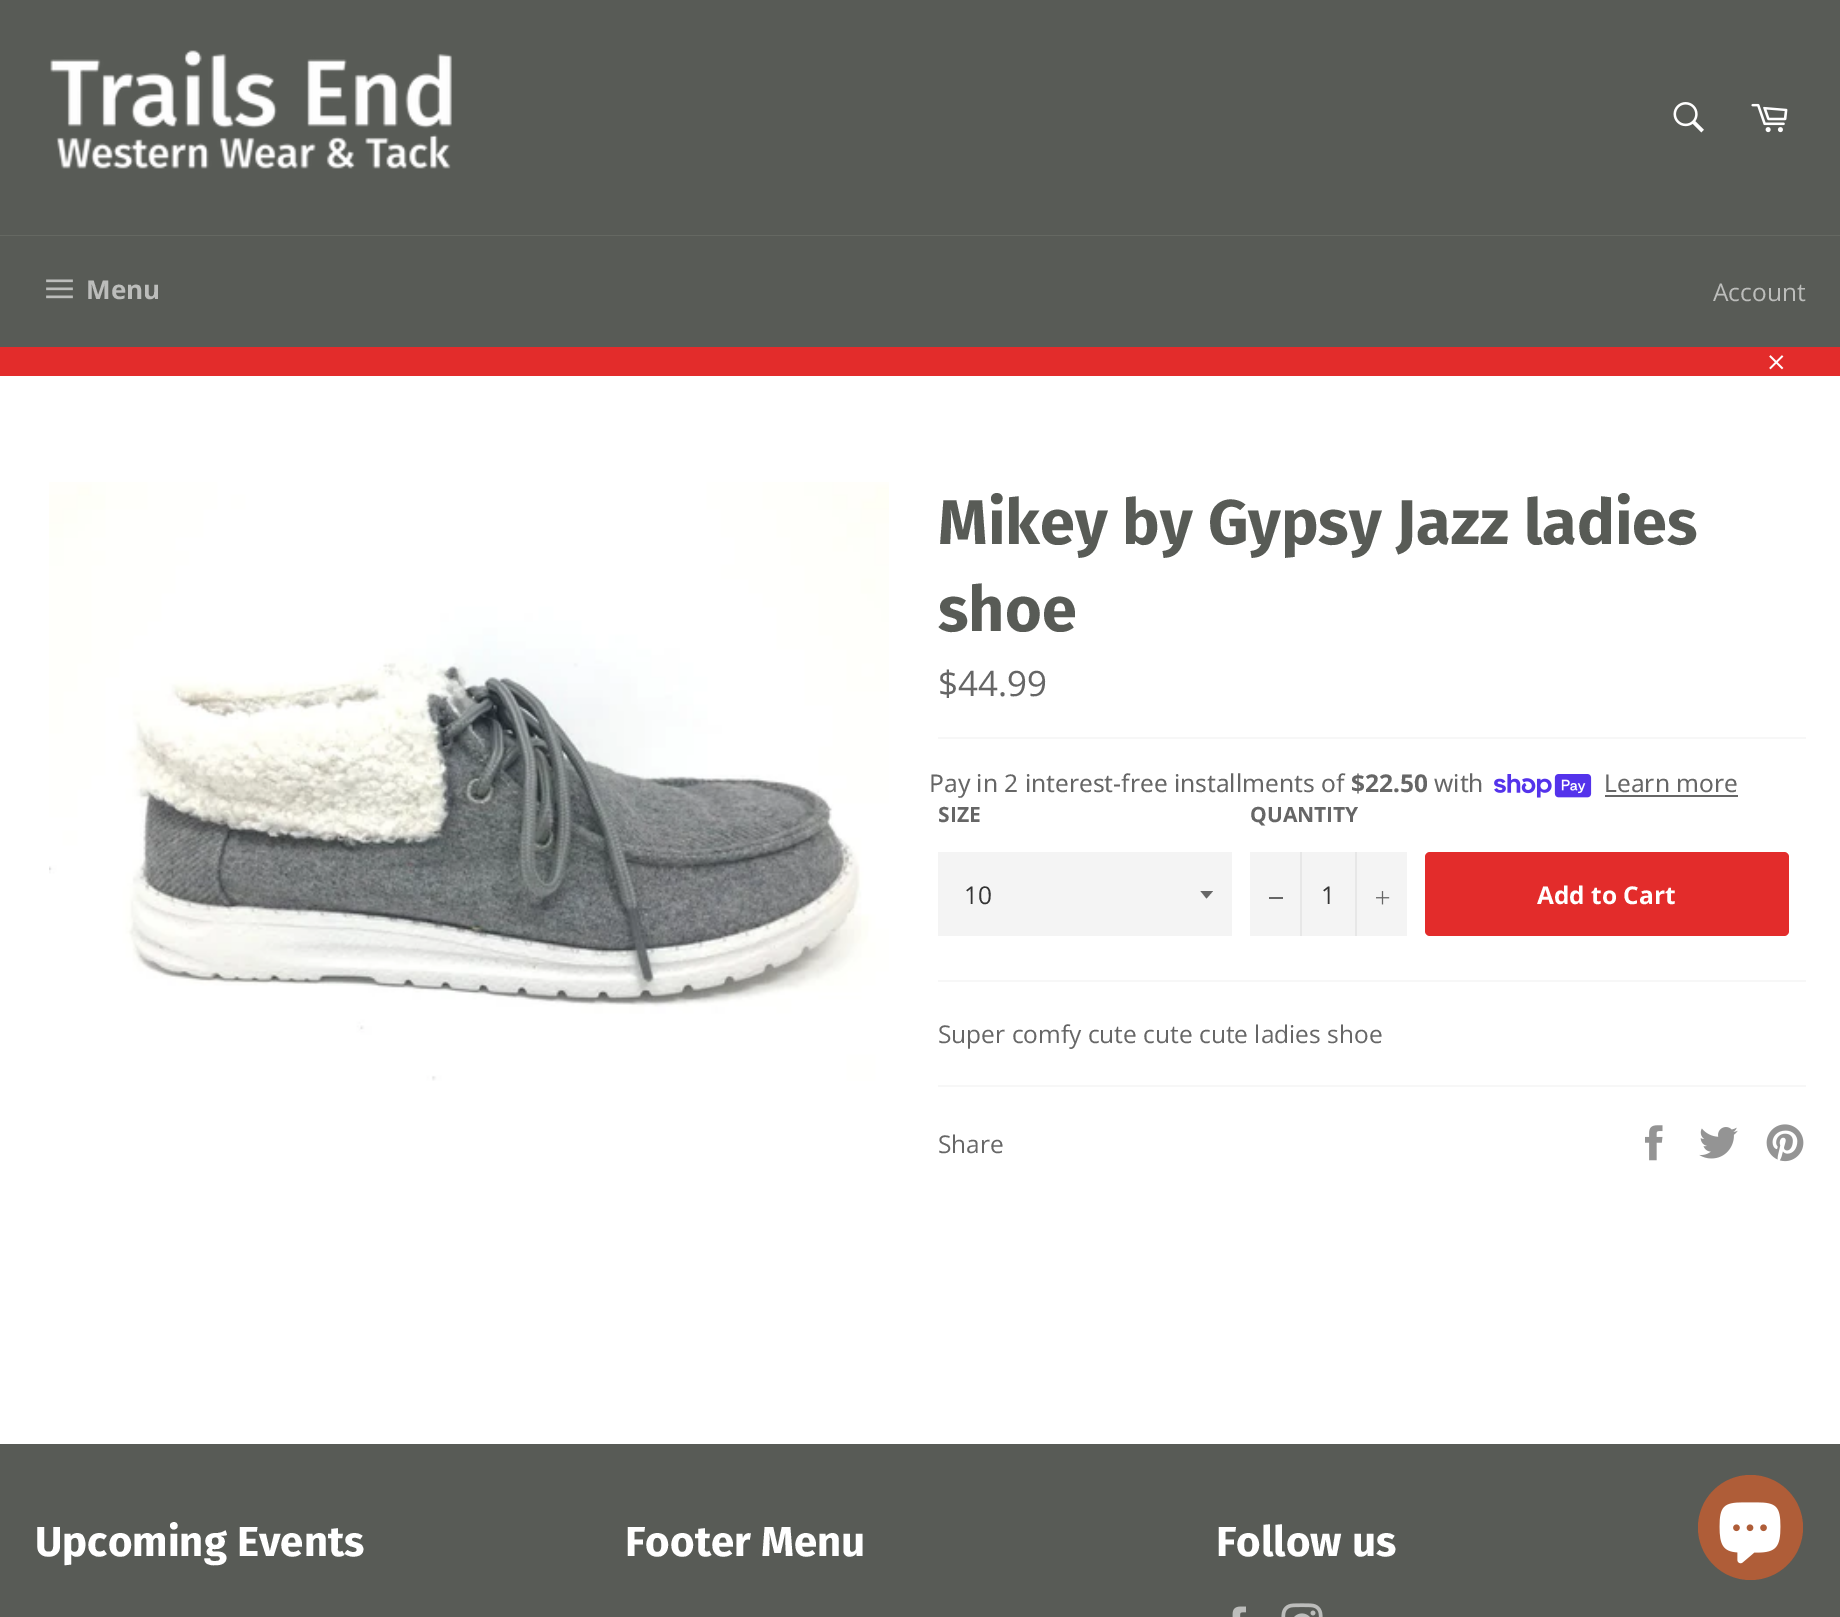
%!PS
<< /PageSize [1840 1617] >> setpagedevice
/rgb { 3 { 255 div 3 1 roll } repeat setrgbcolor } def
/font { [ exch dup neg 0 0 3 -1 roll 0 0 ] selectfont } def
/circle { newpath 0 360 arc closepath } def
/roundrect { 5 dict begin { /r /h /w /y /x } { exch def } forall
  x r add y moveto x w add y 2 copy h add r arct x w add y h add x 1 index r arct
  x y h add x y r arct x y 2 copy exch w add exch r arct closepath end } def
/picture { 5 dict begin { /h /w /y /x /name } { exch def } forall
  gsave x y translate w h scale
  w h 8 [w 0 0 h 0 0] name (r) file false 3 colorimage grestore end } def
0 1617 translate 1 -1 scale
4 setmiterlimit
88 91 86 rgb
0 0 1840 1617 rectfill
(img/1.rgb) 50 50 402 119 picture
(img/2.rgb) 1673 102 31 31 picture
(img/3.rgb) 1751 103 37 30 picture
101 104 98 rgb
0 235 1840 1 rectfill
(img/4.rgb) 46 279 27 20 picture
227 44 43 rgb
0 347 1840 29 rectfill
(img/5.rgb) 1769 355 15 15 picture
255 255 255 rgb
0 376 1840 1068 rectfill
(img/6.rgb) 49 482 840 599 picture
247 247 247 rgb
938 737 868 2 rectfill
(img/7.rgb) 1494 774 98 24 picture
102 102 102 rgb
1605 795 133 2 rectfill
244 244 244 rgb
938 852 294 84 rectfill
102 102 102 rgb
1200.5 891 moveto 1206.5 898.5 lineto 1213 891 lineto closepath fill
[
  [1250 852 157 84 244 244 244]
  [1300 852 2 84 231 231 231]
  [1269 897 14 2 102 102 102]
  [1355 852 2 84 231 231 231]
] { aload pop rgb rectfill } forall
(img/8.rgb) 1376 891 14 14 picture
227 44 43 rgb
1425 852 364 84 5 roundrect fill
247 247 247 rgb
938 980 868 2 rectfill
938 1085 868 2 rectfill
(img/9.rgb) 1645 1125 18 36 picture
(img/10.rgb) 1699 1127 39 32 picture
(img/11.rgb) 1766 1124 38 38 picture
(img/12.rgb) 1232 1606 14 11 picture
(img/13.rgb) 1281 1603 42 14 picture
175 93 56 rgb
1750.5 1527.5 52.5 circle fill
(img/14.rgb) 1719 1502 62 62 picture
/OpenSans-Bold 26 font
188 189 187 rgb
86 299 moveto (Menu) show
/OpenSans-Regular 24.5 font
1713 301 moveto (Account) show
/FiraSans-Bold 63 font
88 91 86 rgb
938 544 moveto (Mikey by Gypsy Jazz ladies) show
938 631 moveto (shoe) show
/OpenSans-Regular 35 font
102 102 102 rgb
938 696 moveto ($44.99) show
/NotoSans-Regular 24.5 font
929 792 moveto (Pay in 2 interest-free installments of) show
/NotoSans-Bold 24.5 font
1351 792 moveto ($22.50) show
/NotoSans-Regular 24.5 font
1434 792 moveto (with) show
1604 792 moveto (Learn more) show
/OpenSans-Bold 21 font
938 822 moveto (SIZE) show
/OpenSans-Regular 24.5 font
51 51 51 rgb
964 904 moveto (10) show
/OpenSans-Bold 21 font
102 102 102 rgb
1250 822 moveto (QUANTITY) show
/OpenSans-Regular 24.5 font
51 51 51 rgb
1321 904 moveto (1) show
/OpenSans-Bold 24.5 font
255 255 255 rgb
1537 904 moveto (Add to Cart) show
/OpenSans-Regular 24.5 font
102 102 102 rgb
938 1043 moveto (Super comfy cute cute cute ladies shoe) show
938 1153 moveto (Share) show
/FiraSans-Bold 42 font
255 255 255 rgb
[
  [(Upcoming Events) 35 1556]
  [(Footer Menu) 625 1556]
  [(Follow us) 1216 1556]
] { aload pop moveto show } forall
showpage
